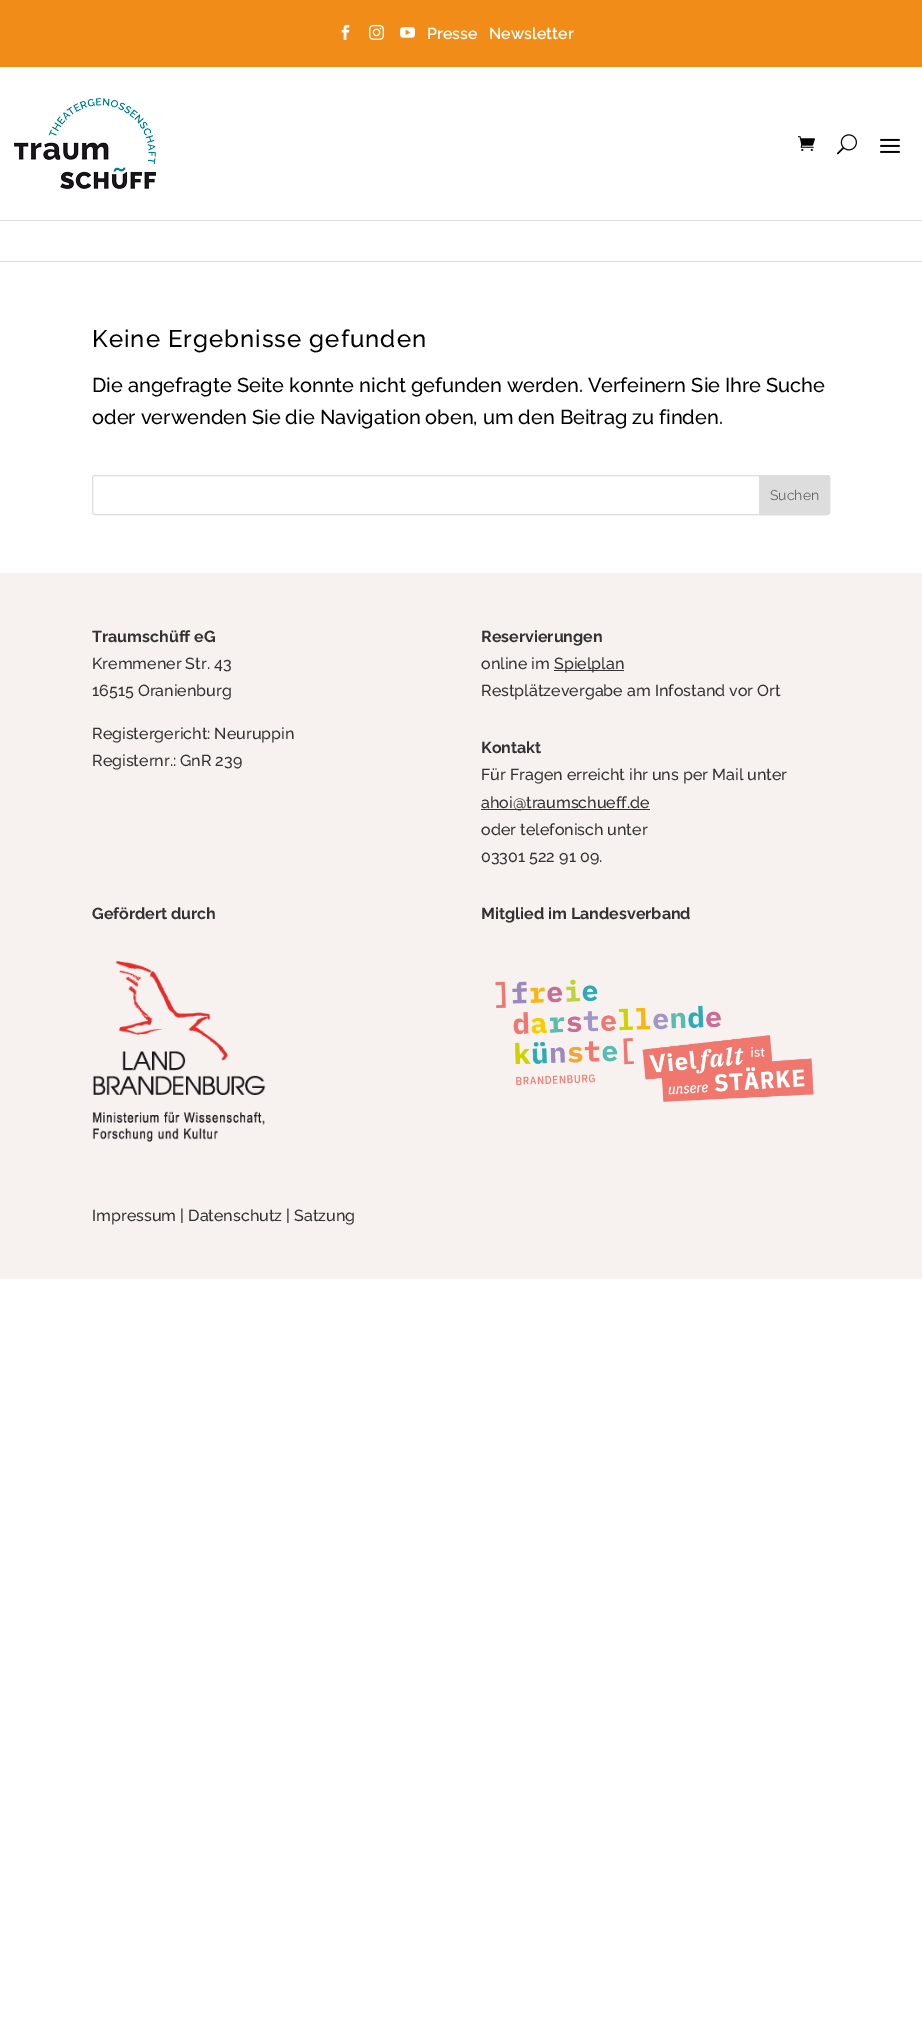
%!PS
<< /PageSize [922 2041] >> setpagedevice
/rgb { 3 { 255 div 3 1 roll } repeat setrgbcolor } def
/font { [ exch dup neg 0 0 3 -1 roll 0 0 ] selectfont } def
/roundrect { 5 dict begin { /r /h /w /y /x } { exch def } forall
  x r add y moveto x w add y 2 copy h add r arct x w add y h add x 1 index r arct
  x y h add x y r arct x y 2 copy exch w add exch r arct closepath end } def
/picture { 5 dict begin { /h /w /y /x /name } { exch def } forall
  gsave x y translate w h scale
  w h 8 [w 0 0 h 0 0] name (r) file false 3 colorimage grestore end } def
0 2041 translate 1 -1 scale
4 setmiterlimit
255 255 255 rgb
0 0 922 2041 rectfill
241 140 25 rgb
0 0 922 67 rectfill
(img/1.rgb) 341 24 9 16 picture
(img/2.rgb) 369 24 15 16 picture
(img/3.rgb) 400 27 15 11 picture
221 221 221 rgb
0 220 922 1 rectfill
(img/4.rgb) 14 98 143 92 picture
(img/5.rgb) 798 136 17 15 picture
(img/6.rgb) 837 134 20 21 picture
(img/7.rgb) 880 138 20 15 picture
0 261 922 1 rectfill
92.5 475.5 737 39 2.5 roundrect stroke
759.5 475.5 moveto 827 475.5 lineto 828.5 475.5 829.5 476.5 829.5 478 curveto 829.5 512 lineto 829.5 513.5 828.5 514.5 827 514.5 curveto 759.5 514.5 lineto closepath gsave fill grestore
stroke
[
  [0 573 922 706 247 242 239]
  [554 670 70 1 51 51 51]
  [481 809 169 1 51 51 51]
] { aload pop rgb rectfill } forall
(img/8.rgb) 92 961 174 181 picture
(img/9.rgb) 495 979 319 123 picture
/Raleway-SemiBold 16 font
255 255 255 rgb
427 39 moveto (Presse) show
489 39 moveto (Newsletter) show
/Raleway-Medium 24 font
0 0 0 rgb
92 347 moveto 1 0 (Keine Ergebnisse gefunden) ashow
/Raleway-Medium 20 font
92 392 moveto (Die angefragte Seite konnte nicht gefunden werden. Verfeinern Sie Ihre Suche) show
92 424 moveto (oder verwenden Sie die Navigation oben, um den Beitrag zu finden.) show
/Raleway-Regular 14 font
102 102 102 rgb
770 500 moveto (Suchen) show
/Raleway-Bold 16 font
51 51 51 rgb
92 642 moveto (Traumschüff eG) show
/Raleway-Medium 16 font
[
  [(Kremmener Str. 43) 92 669]
  [(16515 Oranienburg) 92 696]
  [(Registergericht: Neuruppin) 92 739]
  [(Registernr.: GnR 239) 92 766]
] { aload pop moveto show } forall
/Raleway-Bold 16 font
481 642 moveto (Reservierungen) show
/Raleway-Medium 16 font
[
  [(online im) 481 669]
  [(Spielplan) 554 669]
  [(Restplätzevergabe am Infostand vor Ort) 481 696]
] { aload pop moveto show } forall
/Raleway-Bold 16 font
481 753 moveto (Kontakt) show
/Raleway-Medium 16 font
[
  [(Für Fragen erreicht ihr uns per Mail unter) 481 780]
  [(ahoi@traumschueff.de) 481 808]
  [(oder telefonisch unter) 481 835]
  [(03301 522 91 09.) 481 862]
] { aload pop moveto show } forall
/Raleway-Bold 16 font
92 919 moveto (Gefördert durch) show
481 919 moveto (Mitglied im Landesverband) show
/Raleway-Medium 16 font
92 1221 moveto (Impressum | Datenschutz | Satzung) show
showpage
